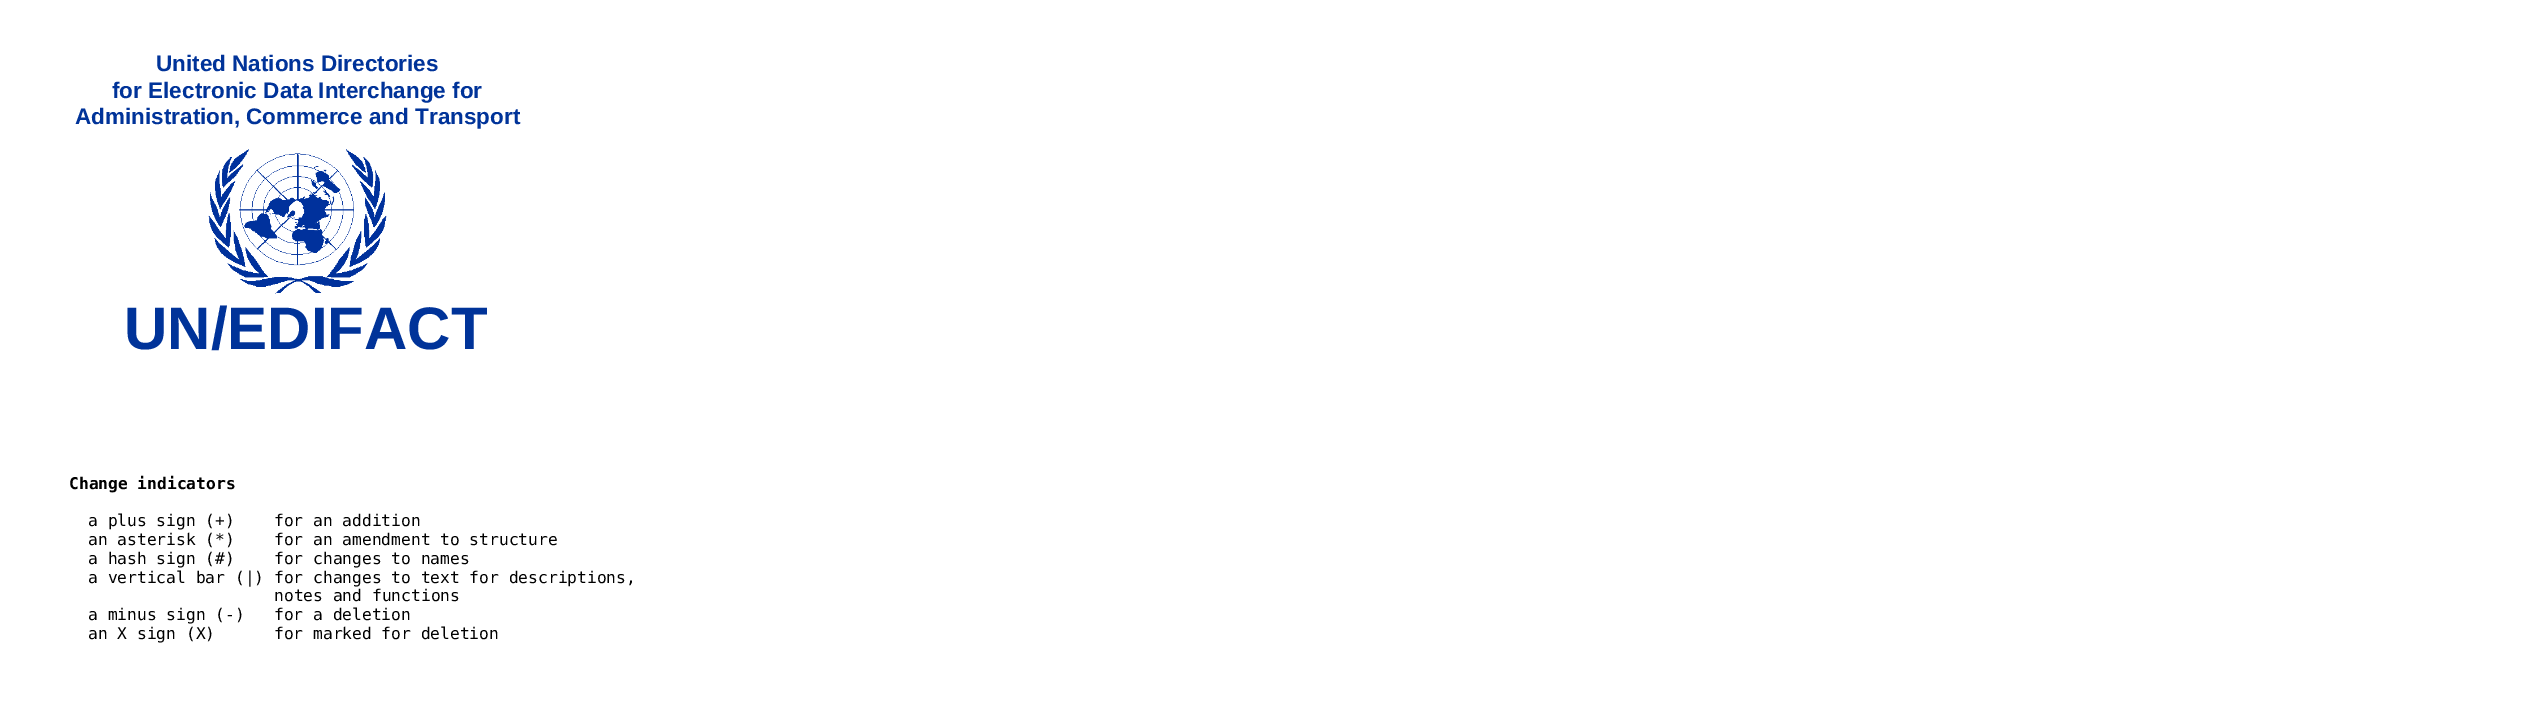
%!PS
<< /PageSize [2522 703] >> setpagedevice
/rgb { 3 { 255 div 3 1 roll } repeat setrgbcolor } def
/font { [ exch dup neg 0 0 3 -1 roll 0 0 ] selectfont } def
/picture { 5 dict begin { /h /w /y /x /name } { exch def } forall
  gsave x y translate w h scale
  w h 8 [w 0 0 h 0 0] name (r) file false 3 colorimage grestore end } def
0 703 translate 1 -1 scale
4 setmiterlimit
255 255 255 rgb
0 0 2522 703 rectfill
(img/1.rgb) 208 149 179 145 picture
/LiberationSans-Bold 22.5 font
0 51 153 rgb
[
  [(United Nations Directories) 156 71]
  [(for Electronic Data Interchange for) 112 98]
  [(Administration, Commerce and Transport) 75 124]
] { aload pop moveto show } forall
/LiberationSans-Bold 60 font
124 349 moveto (UN/EDIFACT) show
/DejaVuSansMono-Bold 16.25 font
0 0 0 rgb
69 489 moveto (Change indicators) show
/DejaVuSansMono-Regular 16.25 font
[
  [(a plus sign \(+\)    for an addition) 88 526]
  [(an asterisk \(*\)    for an amendment to structure) 88 545]
  [(a hash sign \(#\)    for changes to names) 88 564]
  [(a vertical bar \(|\) for changes to text for descriptions,) 88 583]
  [(notes and functions) 274 601]
  [(a minus sign \(-\)   for a deletion) 88 620]
  [(an X sign \(X\)      for marked for deletion) 88 639]
] { aload pop moveto show } forall
showpage
